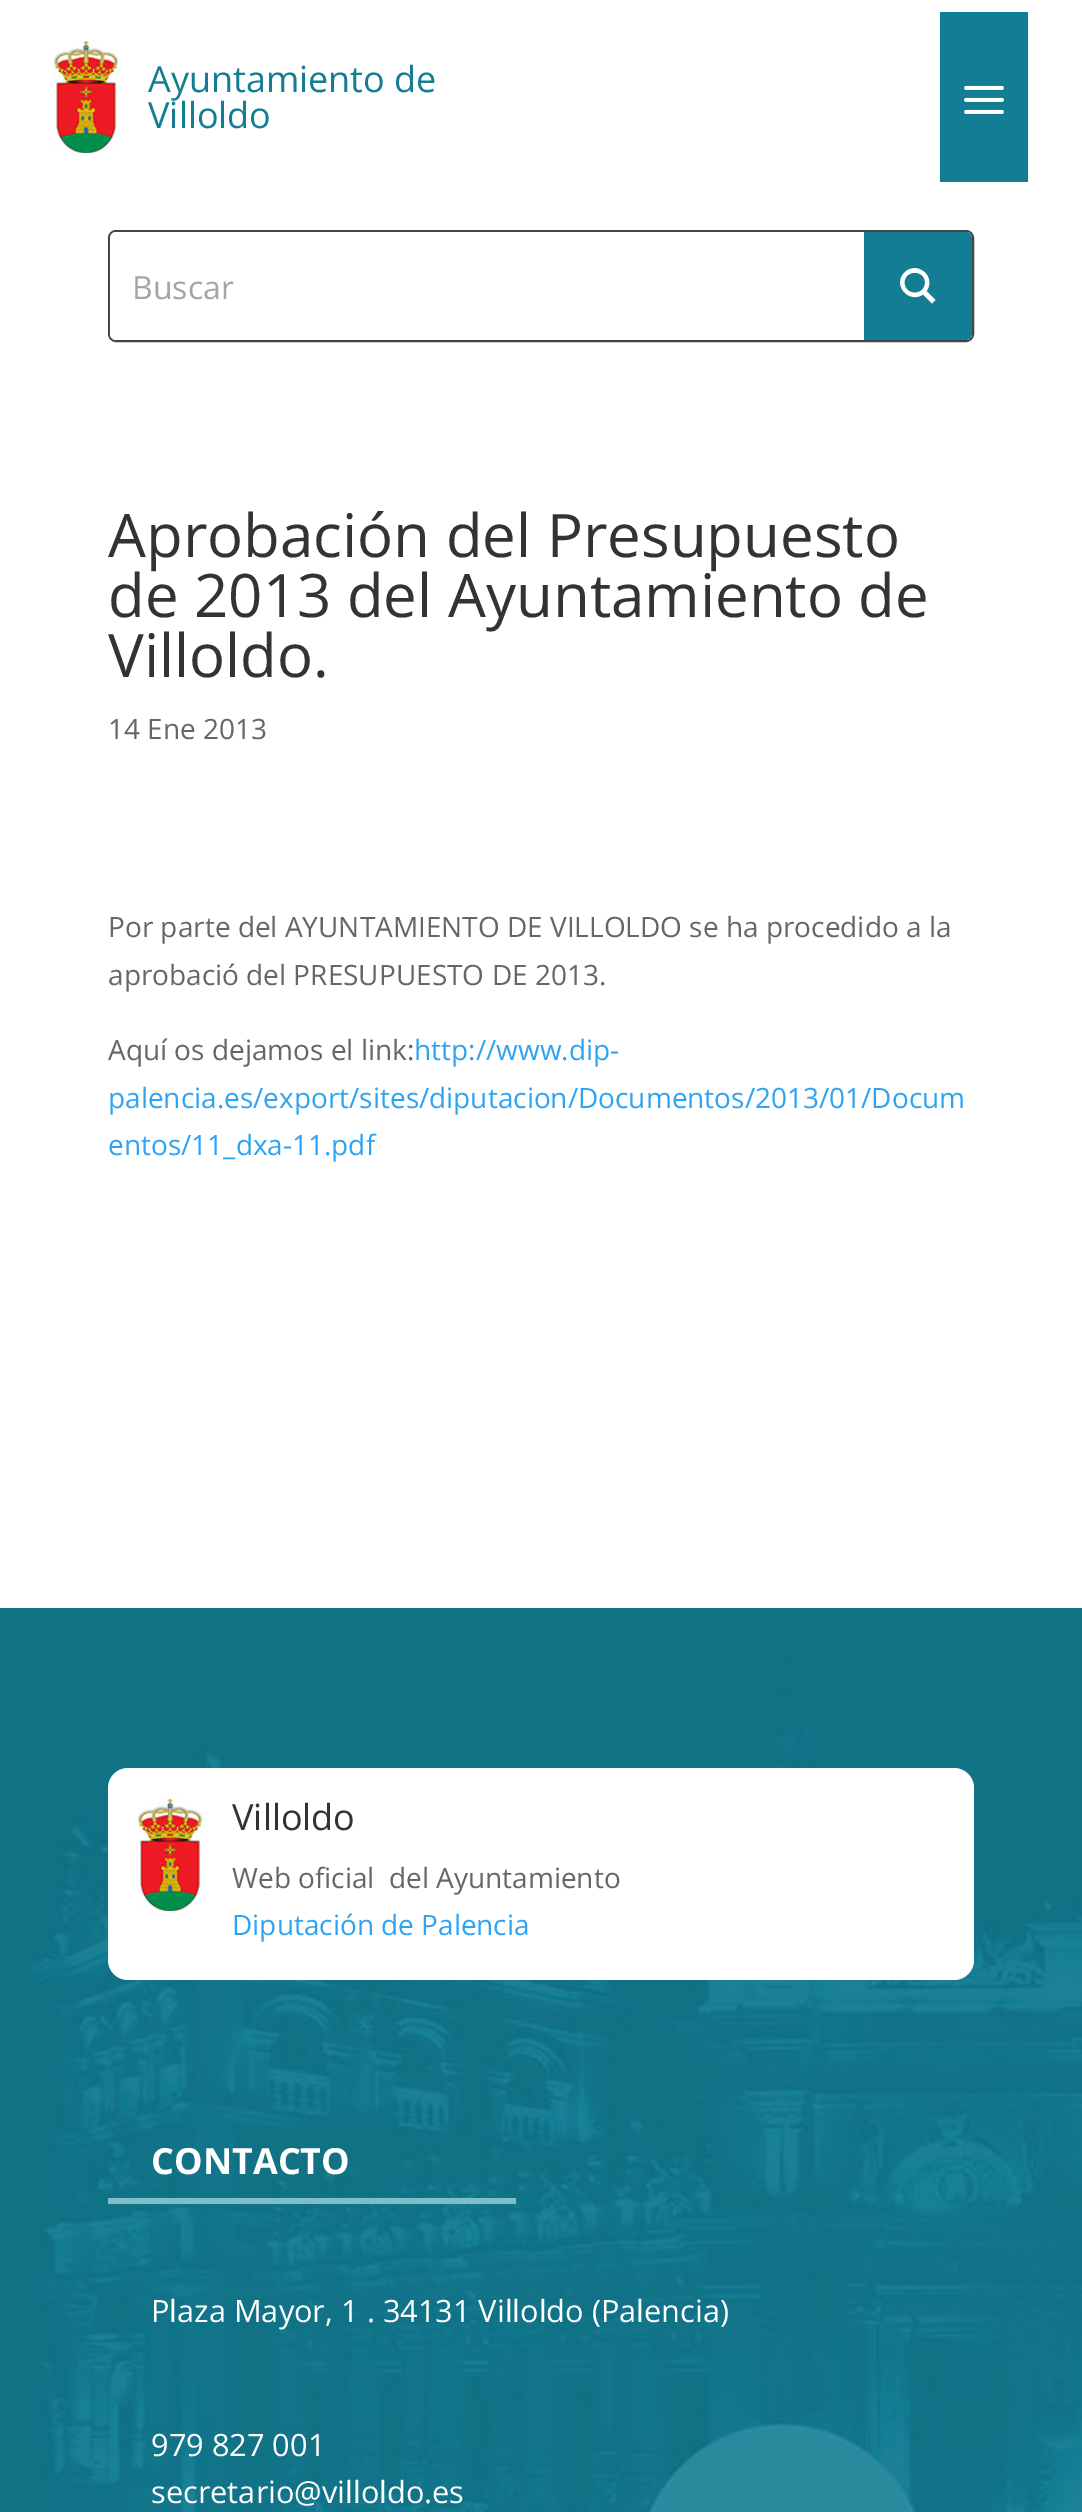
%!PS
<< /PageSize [1082 2512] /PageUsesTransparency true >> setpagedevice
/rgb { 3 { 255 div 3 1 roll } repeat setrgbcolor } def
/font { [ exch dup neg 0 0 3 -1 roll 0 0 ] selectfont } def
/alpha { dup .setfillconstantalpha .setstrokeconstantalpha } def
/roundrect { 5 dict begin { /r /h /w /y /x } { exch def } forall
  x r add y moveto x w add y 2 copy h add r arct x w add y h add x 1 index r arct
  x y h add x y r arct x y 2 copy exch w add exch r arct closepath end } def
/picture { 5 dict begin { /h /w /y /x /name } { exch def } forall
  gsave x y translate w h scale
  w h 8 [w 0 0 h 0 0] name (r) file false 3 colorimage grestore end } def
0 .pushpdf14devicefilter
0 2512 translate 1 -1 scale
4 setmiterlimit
255 255 255 rgb
0 0 1082 2512 rectfill
(img/1.rgb) 54 40 64 114 picture
19 125 147 rgb
940 12 88 170 rectfill
(img/2.rgb) 964 85 40 29 picture
gsave
108 230 866 112 8 roundrect clip newpath
gsave 110 232 moveto 972 232 lineto 972 340 lineto 110 340 lineto closepath clip newpath 541 286 translate 610 76 scale
<< /ShadingType 3 /ColorSpace /DeviceRGB /Coords [0 0 0 0 0 1] /Extend [true true] /Function << /FunctionType 2 /Domain [0 1] /C0 [1 0.988 0.988] /C1 [1 1 1] /N 1 >> >> shfill grestore
grestore
0.73 alpha
0 0 0 rgb
2 setlinewidth
109 231 864 110 7 roundrect stroke
1 alpha
255 255 255 rgb
110 232 862 108 6 roundrect fill
19 125 147 rgb
864 232 moveto 966 232 lineto 969.5 232 972 234.5 972 238 curveto 972 334 lineto 972 337.5 969.5 340 966 340 curveto 864 340 lineto closepath fill
255 255 255 rgb
935.5 300 moveto 926.5 291 lineto 936.5 277 917.5 260 904.5 272.5 curveto 892 285 909 304 923 294.5 curveto 932 303.5 lineto closepath 904.5 282.5 moveto 904.5 269.5 925 269.5 925 282.5 curveto 925 296 904.5 296 904.5 282.5 curveto closepath fill
(img/3.rgb) 0 1608 1082 904 picture
108 1768 866 212 20 roundrect fill
(img/1.rgb) 138 1798 64 114 picture
126 190 197 rgb
108 2198 408 6 rectfill
/OpenSans-Regular 36 font
19 125 147 rgb
148 92 moveto (Ayuntamiento de) show
148 128 moveto (Villoldo) show
/OpenSans-Regular 32 font
165 165 165 rgb
132 299 moveto (Buscar) show
/OpenSans-Regular 60 font
51 51 51 rgb
[
  [(Aprobación del Presupuesto) 108 557]
  [(de 2013 del Ayuntamiento de) 108 617]
  [(Villoldo.) 108 677]
] { aload pop moveto show } forall
/OpenSans-Regular 28 font
102 102 102 rgb
[
  [(14 Ene 2013) 108 739]
  [(Por parte del AYUNTAMIENTO DE VILLOLDO se ha procedido a la) 108 937]
  [(aprobació del PRESUPUESTO DE 2013.) 108 985]
  [(Aquí os dejamos el link:) 108 1060]
] { aload pop moveto show } forall
46 163 242 rgb
[
  [(http://www.dip-) 414 1060]
  [(palencia.es/export/sites/diputacion/Documentos/2013/01/Docum) 108 1108]
  [(entos/11_dxa-11.pdf) 108 1155]
] { aload pop moveto show } forall
/OpenSans-Regular 36 font
51 51 51 rgb
232 1830 moveto (Villoldo) show
/OpenSans-Regular 28 font
102 102 102 rgb
232 1888 moveto (Web oficial  del Ayuntamiento) show
46 163 242 rgb
232 1935 moveto (Diputación de Palencia) show
/OpenSans-Bold 36 font
255 255 255 rgb
151 2174 moveto (CONTACTO) show
/OpenSans-Regular 30.75 font
[
  [(Plaza Mayor, 1 . 34131 Villoldo \(Palencia\)) 151 2322]
  [(979 827 001) 151 2456]
  [(secretario@villoldo.es) 151 2503]
] { aload pop moveto show } forall
.poppdf14devicefilter showpage
